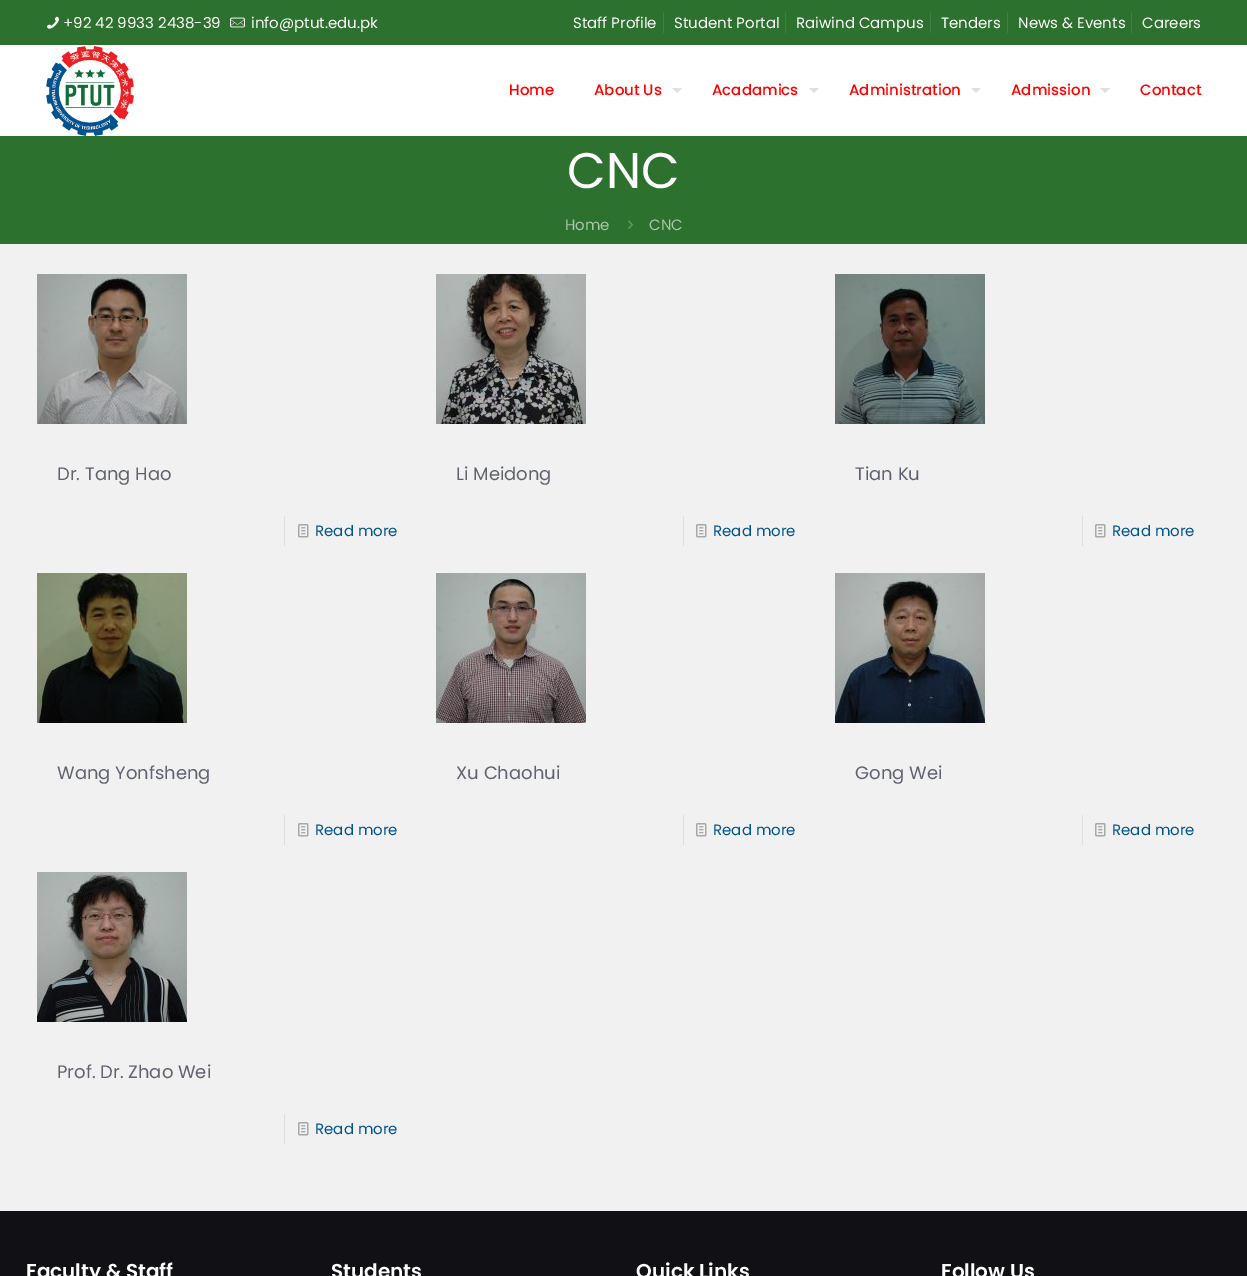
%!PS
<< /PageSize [1247 1276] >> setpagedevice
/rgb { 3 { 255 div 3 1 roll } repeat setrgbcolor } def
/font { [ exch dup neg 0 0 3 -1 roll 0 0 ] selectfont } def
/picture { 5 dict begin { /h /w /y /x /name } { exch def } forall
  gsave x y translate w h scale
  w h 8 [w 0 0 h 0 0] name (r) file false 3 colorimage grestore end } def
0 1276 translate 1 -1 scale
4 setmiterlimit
242 241 241 rgb
0 0 1247 1276 rectfill
255 255 255 rgb
0 45 1247 91 rectfill
45 113 47 rgb
0 0 1247 45 rectfill
(img/1.rgb) 47 16 12 13 picture
(img/2.rgb) 230 17 15 11 picture
[
  [663 12 1 21 66 127 68]
  [785 12 1 21 66 127 68]
  [930 12 1 21 66 127 68]
  [1007 12 1 21 66 127 68]
  [1131 12 1 21 66 127 68]
] { aload pop rgb rectfill } forall
(img/3.rgb) 46 46 88 90 picture
224 224 224 rgb
672 88 moveto 682 88 lineto 677 93 lineto closepath fill
809 88 moveto 819 88 lineto 814 93 lineto closepath fill
971 88 moveto 981 88 lineto 976 93 lineto closepath fill
1100 88 moveto 1110 88 lineto 1105 93 lineto closepath fill
45 113 47 rgb
0 136 1247 108 rectfill
(img/4.rgb) 628 220 5 9 picture
(img/5.rgb) 37 274 150 150 picture
223 222 222 rgb
284 516 1 30 rectfill
(img/6.rgb) 298 524 11 14 picture
(img/7.rgb) 436 274 150 150 picture
683 516 1 30 rectfill
(img/6.rgb) 696 524 11 14 picture
(img/8.rgb) 835 274 150 150 picture
1082 516 1 30 rectfill
(img/6.rgb) 1095 524 11 14 picture
(img/9.rgb) 37 573 150 150 picture
284 815 1 30 rectfill
(img/6.rgb) 298 823 11 14 picture
(img/10.rgb) 436 573 150 150 picture
683 815 1 30 rectfill
(img/6.rgb) 696 823 11 14 picture
(img/11.rgb) 835 573 150 150 picture
1082 815 1 30 rectfill
(img/6.rgb) 1095 823 11 14 picture
(img/12.rgb) 37 872 150 150 picture
284 1114 1 30 rectfill
(img/6.rgb) 298 1122 11 14 picture
16 16 21 rgb
0 1211 1247 65 rectfill
/Poppins-Regular 15 font
255 255 255 rgb
[
  [(+92 42 9933 2438-39) 63 28]
  [(info@ptut.edu.pk) 251 28]
  [(Staff Profile) 573 28]
  [(Student Portal) 674 28]
  [(Raiwind Campus) 796 28]
  [(Tenders) 941 28]
  [(News & Events) 1018 28]
  [(Careers) 1142 28]
] { aload pop moveto show } forall
/Poppins-Medium 15 font
255 0 0 rgb
[
  [(Home) 509 95]
  [(About Us) 594 95]
  [(Acadamics) 712 95]
  [(Administration) 849 95]
  [(Admission) 1011 95]
  [(Contact) 1140 95]
] { aload pop moveto show } forall
/Poppins-Regular 50 font
255 255 255 rgb
567 188 moveto (CNC) show
/Poppins-Regular 15 font
171 198 172 rgb
565 230 moveto (Home) show
649 230 moveto (CNC) show
/Poppins-Regular 18 font
95 98 113 rgb
57 480 moveto (Dr. Tang Hao) show
/Poppins-Regular 15 font
0 84 144 rgb
315 536 moveto (Read more) show
/Poppins-Regular 18 font
95 98 113 rgb
456 480 moveto (Li Meidong) show
/Poppins-Regular 15 font
0 84 144 rgb
713 536 moveto (Read more) show
/Poppins-Regular 18 font
95 98 113 rgb
855 480 moveto (Tian Ku) show
/Poppins-Regular 15 font
0 84 144 rgb
1112 536 moveto (Read more) show
/Poppins-Regular 18 font
95 98 113 rgb
57 779 moveto (Wang Yonfsheng) show
/Poppins-Regular 15 font
0 84 144 rgb
315 835 moveto (Read more) show
/Poppins-Regular 18 font
95 98 113 rgb
456 779 moveto (Xu Chaohui) show
/Poppins-Regular 15 font
0 84 144 rgb
713 835 moveto (Read more) show
/Poppins-Regular 18 font
95 98 113 rgb
855 779 moveto (Gong Wei) show
/Poppins-Regular 15 font
0 84 144 rgb
1112 835 moveto (Read more) show
/Poppins-Regular 18 font
95 98 113 rgb
57 1078 moveto (Prof. Dr. Zhao Wei) show
/Poppins-Regular 15 font
0 84 144 rgb
315 1134 moveto (Read more) show
/Poppins-SemiBold 20 font
255 255 255 rgb
[
  [(Faculty & Staff) 26 1278]
  [(Students) 331 1278]
  [(Quick Links) 636 1278]
  [(Follow Us) 941 1278]
] { aload pop moveto show } forall
showpage
